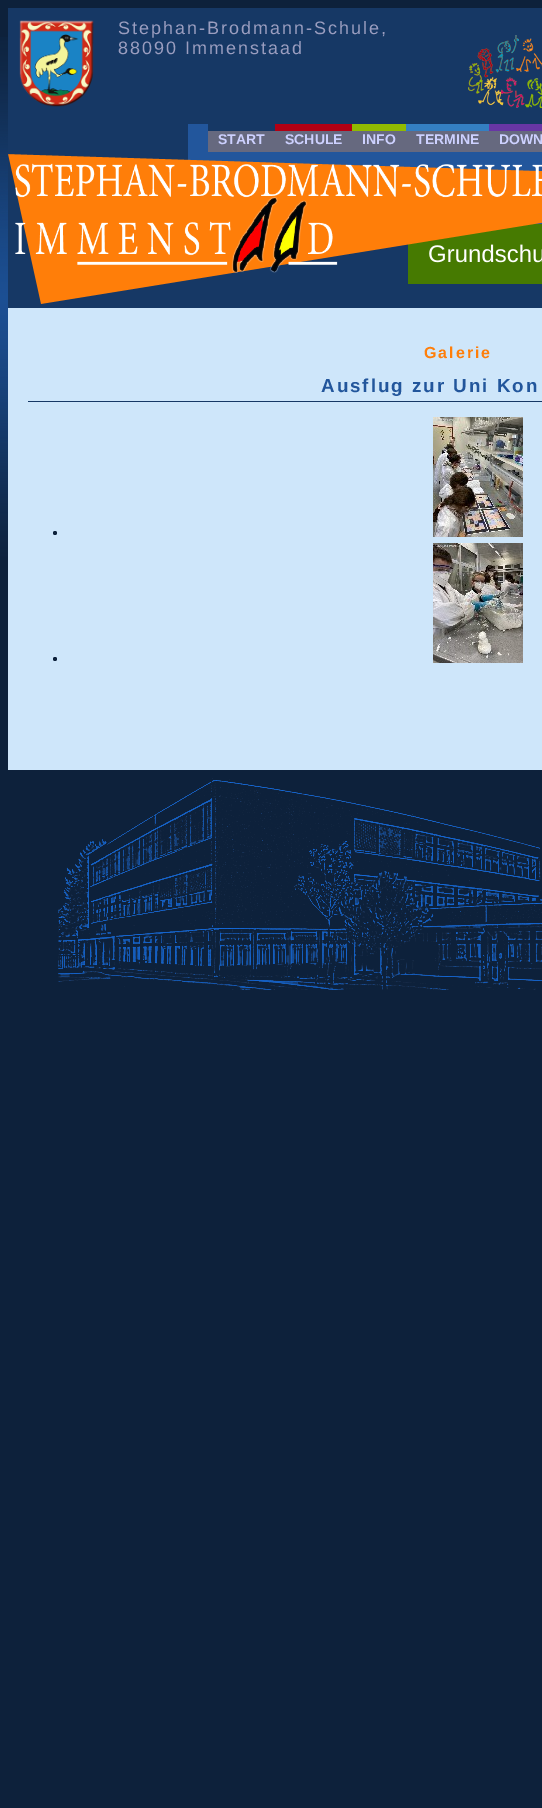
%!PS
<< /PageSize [542 1808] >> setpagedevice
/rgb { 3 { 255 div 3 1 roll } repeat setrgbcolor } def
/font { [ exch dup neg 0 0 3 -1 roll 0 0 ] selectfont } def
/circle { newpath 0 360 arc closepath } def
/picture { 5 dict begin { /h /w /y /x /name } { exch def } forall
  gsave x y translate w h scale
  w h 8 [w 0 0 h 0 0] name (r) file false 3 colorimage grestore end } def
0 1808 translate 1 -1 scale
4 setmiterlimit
13 33 59 rgb
0 0 542 1808 rectfill
(img/1.rgb) 0 37 8 523 picture
22 56 101 rgb
8 8 534 300 rectfill
(img/2.rgb) 19 20 75 87 picture
(img/3.rgb) 468 35 74 73 picture
[
  [188 124 354 100 34 86 156]
  [208 124 67 7 22 56 101]
  [208 131 334 21 102 105 127]
  [275 124 77 7 178 0 20]
  [352 124 54 7 144 186 1]
  [406 124 83 7 52 127 194]
  [489 124 53 7 104 54 165]
  [408 224 134 60 70 122 1]
  [8 308 534 462 206 230 250]
  [28 401 514 1 22 56 101]
] { aload pop rgb rectfill } forall
13 33 59 rgb
55 533 2 circle fill
(img/6.rgb) 433 417 90 120 picture
55 659 2 circle fill
(img/7.rgb) 433 543 90 120 picture
(img/8.rgb) 58 778 484 212 picture
/LiberationSans-Regular 18 font
154 157 191 rgb
118 34 moveto 2 0 (Stephan-Brodmann-Schule,) ashow
118 54 moveto 2 0 (88090 Immenstaad) ashow
/LiberationSans-Bold 14 font
205 209 255 rgb
[
  [(START) 218 144]
  [(SCHULE) 285 144]
  [(INFO) 362 144]
  [(TERMINE) 416 144]
  [(DOWN) 499 144]
] { aload pop moveto show } forall
/LiberationSans-Regular 24 font
255 255 255 rgb
428 262 moveto (Grundschu) show
(img/4.rgb) 8 154 534 150 picture
(img/5.rgb) 15 163 527 110 picture
/LiberationSans-Bold 16 font
255 126 9 rgb
424 358 moveto 2 0 (Galerie) ashow
/LiberationSans-Bold 18.75 font
34 86 156 rgb
321 392 moveto 2 0 (Ausflug zur Uni Kon) ashow
showpage
